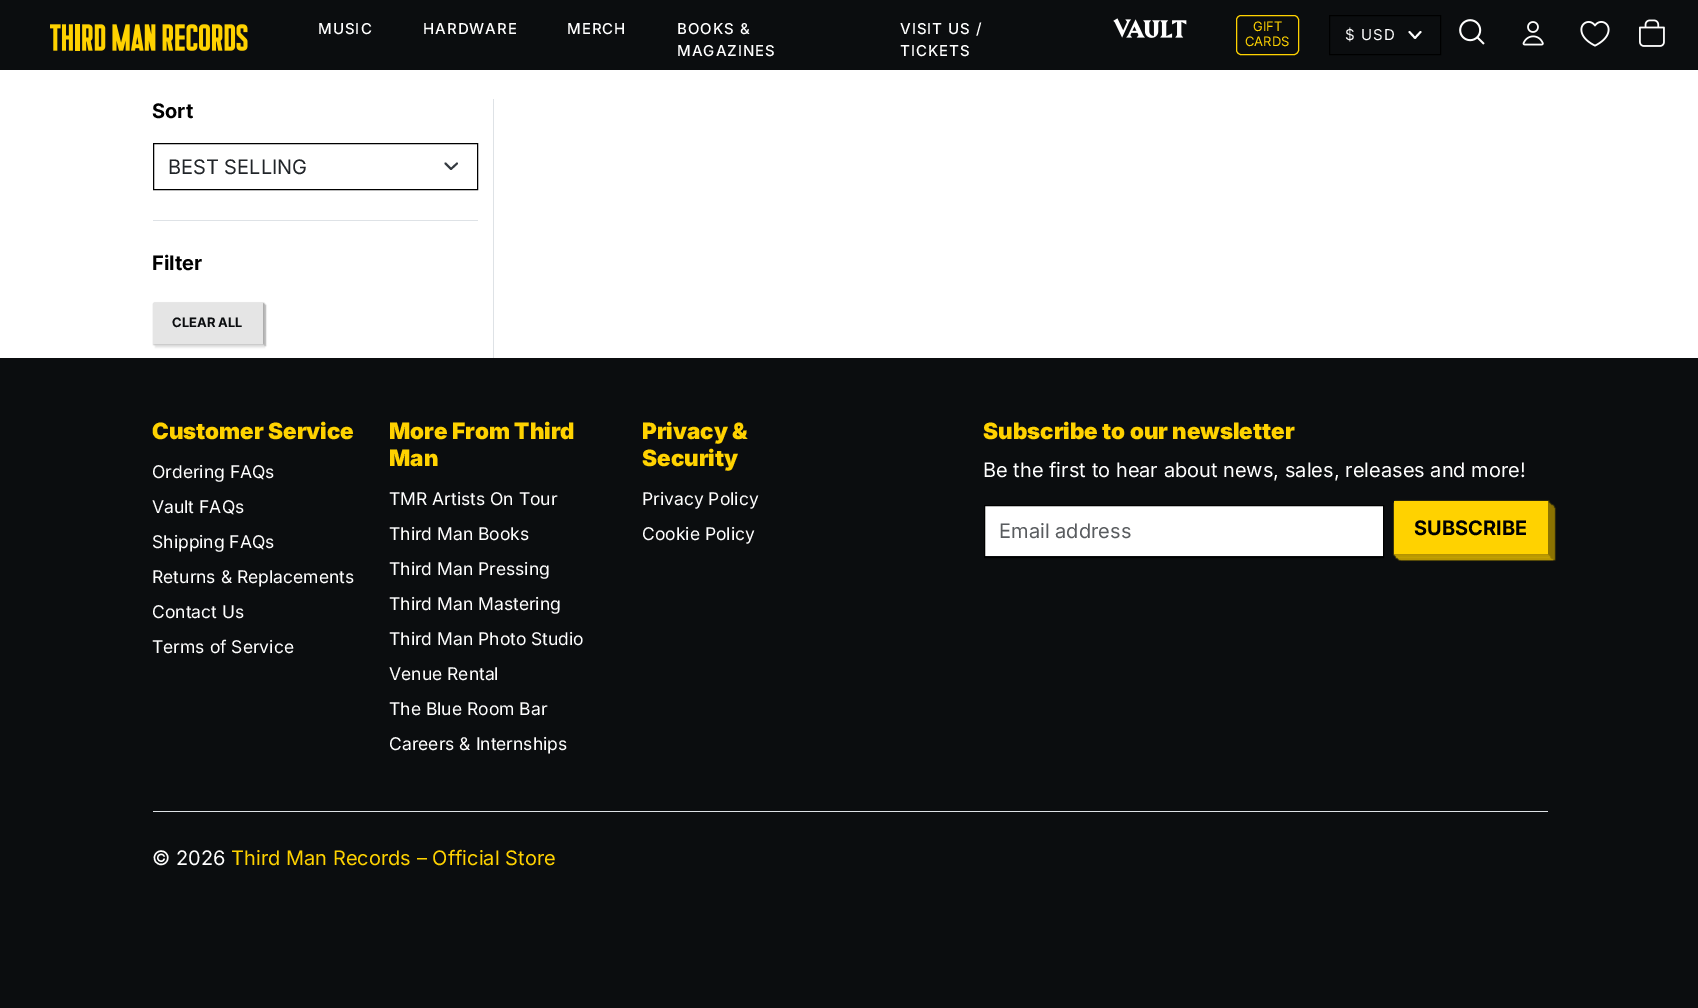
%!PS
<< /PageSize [1698 1008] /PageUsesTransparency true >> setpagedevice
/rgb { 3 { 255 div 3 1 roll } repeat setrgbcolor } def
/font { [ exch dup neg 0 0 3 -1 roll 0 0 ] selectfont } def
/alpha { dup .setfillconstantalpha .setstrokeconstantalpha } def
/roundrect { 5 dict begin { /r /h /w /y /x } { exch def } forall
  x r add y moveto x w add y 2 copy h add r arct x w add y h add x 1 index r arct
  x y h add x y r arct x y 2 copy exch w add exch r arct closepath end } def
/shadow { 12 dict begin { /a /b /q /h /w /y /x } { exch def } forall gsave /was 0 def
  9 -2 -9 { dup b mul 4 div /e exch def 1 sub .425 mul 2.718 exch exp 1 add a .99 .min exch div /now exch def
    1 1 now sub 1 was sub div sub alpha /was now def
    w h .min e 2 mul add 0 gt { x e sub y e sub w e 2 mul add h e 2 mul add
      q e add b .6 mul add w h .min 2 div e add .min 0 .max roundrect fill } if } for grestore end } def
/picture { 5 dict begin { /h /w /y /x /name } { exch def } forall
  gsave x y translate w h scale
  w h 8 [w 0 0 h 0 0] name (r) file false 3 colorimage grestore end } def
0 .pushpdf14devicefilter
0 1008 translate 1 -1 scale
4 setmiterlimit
255 255 255 rgb
0 0 1698 1008 rectfill
11 13 15 rgb
0 0 1698 70 rectfill
(img/1.rgb) 50 24 198 27 picture
(img/2.rgb) 1113 18 74 20 picture
255 210 0 rgb
1236.5 15.5 62 39 4.5 roundrect stroke
255 255 255 rgb
1.9 setlinewidth
1 setlinecap
1 setlinejoin
1409.5 32 moveto 1415 38 lineto 1420.5 32 lineto stroke
0 0 0 rgb
1 setlinewidth
0 setlinecap
0 setlinejoin
1329.5 15.5 111 39 rectstroke
(img/3.rgb) 1459 19 26 26 picture
(img/4.rgb) 1522 21 22 25 picture
(img/5.rgb) 1580 21 30 26 picture
(img/6.rgb) 1639 19 26 28 picture
222 226 230 rgb
493 99 1 259 rectfill
153 220 325 1 rectfill
52 58 64 rgb
1.9 setlinewidth
1 setlinecap
1 setlinejoin
445.5 163.5 moveto 451 169 lineto 457 163.5 lineto stroke
0 0 0 rgb
1 setlinewidth
0 setlinecap
0 setlinejoin
153.5 143.5 324 46 rectstroke
238 238 238 rgb
155 306 110 42 0 0.5 1 shadow
187 187 187 rgb
156 305 110 41 0 0.5 1 shadow
238 238 238 rgb
154 305 110 41 0 0.5 1 shadow
187 187 187 rgb
155 304 110 41 0 0.5 1 shadow
221 221 221 rgb
153 304 110 41 0 0.5 1 shadow
170 170 170 rgb
154 303 110 41 0 0.5 1 shadow
[
  [153 303 110 41 229 229 229]
  [0 358 1698 650 11 13 15]
  [985 506 398 50 255 255 255]
] { aload pop rgb rectfill } forall
0 0 0 rgb
984.5 505.5 399 52 rectstroke
138 113 0 rgb
1401 508 154 52 0 0.5 1 shadow
201 166 0 rgb
1399 508 154 52 0 0.5 1 shadow
138 113 0 rgb
1400 506 154 53 0 0.5 1 shadow
201 166 0 rgb
1398 506 153 53 0 0.5 1 shadow
138 113 0 rgb
1399 505 154 53 0 0.5 1 shadow
201 166 0 rgb
1396 505 154 53 0 0.5 1 shadow
138 113 0 rgb
1398 504 153 52 0 0.5 1 shadow
201 166 0 rgb
1395 504 154 52 0 0.5 1 shadow
138 113 0 rgb
1396 503 154 52 0 0.5 1 shadow
201 166 0 rgb
1394 503 154 52 0 0.5 1 shadow
138 113 0 rgb
1395 501 154 53 0 0.5 1 shadow
255 210 0 rgb
1394 501 154 53 rectfill
222 226 230 rgb
153 811 1395 1 rectfill
/Inter-Medium 15 font
255 255 255 rgb
318 34 moveto 1 0 (MUSIC) ashow
423 34 moveto 1 0 (HARDWARE) ashow
567 34 moveto 1 0 (MERCH) ashow
677 34 moveto 1 0 (BOOKS &) ashow
677 56 moveto 1 0 (MAGAZINES) ashow
900 34 moveto 1 0 (VISIT US /) ashow
900 56 moveto 1 0 (TICKETS) ashow
/Inter-Regular 13 font
255 210 0 rgb
1253 31 moveto (GIFT) show
1245 46 moveto (CARDS) show
/Inter-Regular 15 font
255 255 255 rgb
1345 40 moveto 1 0 ($ USD) ashow
/Inter-Bold 20 font
0 0 0 rgb
152 118 moveto (Sort) show
/Inter-Regular 20 font
33 37 41 rgb
168 174 moveto (BEST SELLING) show
/Inter-Bold 20 font
0 0 0 rgb
152 270 moveto (Filter) show
/Inter-Bold 13 font
11 13 15 rgb
172 327 moveto (CLEAR ALL) show
/Inter-Black 22.5 font
255 210 0 rgb
152 439 moveto (Customer Service) show
/Inter-Regular 17.5 font
255 255 255 rgb
[
  [(Ordering FAQs) 152 478]
  [(Vault FAQs) 152 513]
  [(Shipping FAQs) 152 548]
  [(Returns & Replacements) 152 583]
  [(Contact Us) 152 618]
  [(Terms of Service) 152 653]
] { aload pop moveto show } forall
/Inter-Black 22.5 font
255 210 0 rgb
389 439 moveto (More From Third) show
389 466 moveto (Man) show
/Inter-Regular 17.5 font
255 255 255 rgb
[
  [(TMR Artists On Tour) 389 505]
  [(Third Man Books) 389 540]
  [(Third Man Pressing) 389 575]
  [(Third Man Mastering) 389 610]
  [(Third Man Photo Studio) 389 645]
  [(Venue Rental) 389 680]
  [(The Blue Room Bar) 389 715]
  [(Careers & Internships) 389 750]
] { aload pop moveto show } forall
/Inter-Black 22.5 font
255 210 0 rgb
642 439 moveto (Privacy &) show
642 466 moveto (Security) show
/Inter-Regular 17.5 font
255 255 255 rgb
642 505 moveto (Privacy Policy) show
642 540 moveto (Cookie Policy) show
/Inter-Black 22.5 font
255 210 0 rgb
983 439 moveto (Subscribe to our newsletter) show
/Inter-Regular 20 font
255 255 255 rgb
983 477 moveto (Be the first to hear about news, sales, releases and more!) show
89 92 95 rgb
999 538 moveto (Email address) show
/Inter-Bold 20 font
0 0 0 rgb
1414 535 moveto (SUBSCRIBE) show
/Inter-Regular 20 font
255 255 255 rgb
152 865 moveto (© 2026) show
255 210 0 rgb
231 865 moveto (Third Man Records – Official Store) show
.poppdf14devicefilter showpage
